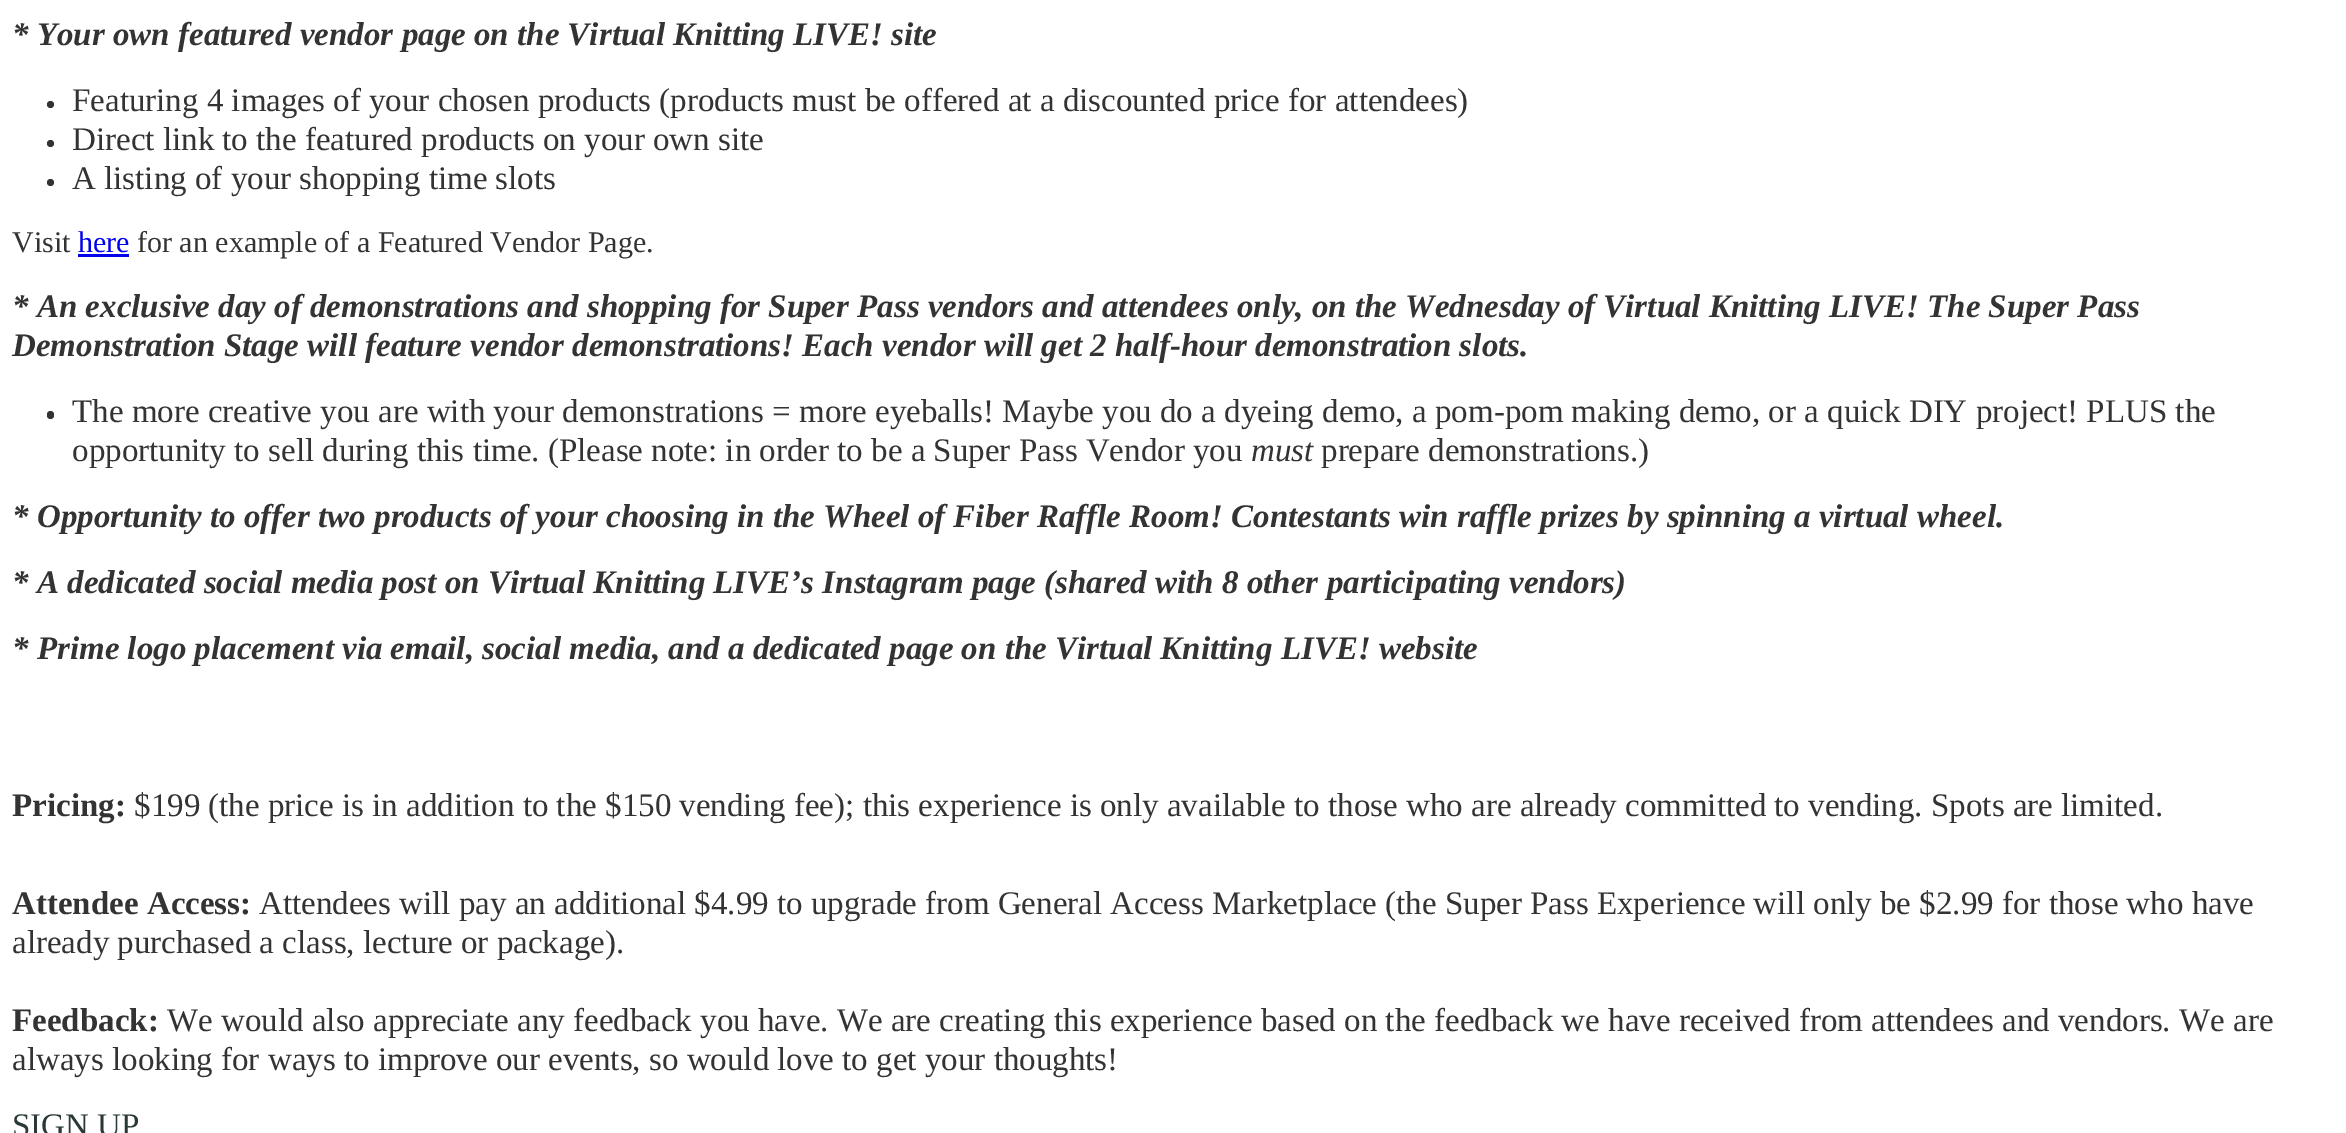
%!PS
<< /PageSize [2346 1133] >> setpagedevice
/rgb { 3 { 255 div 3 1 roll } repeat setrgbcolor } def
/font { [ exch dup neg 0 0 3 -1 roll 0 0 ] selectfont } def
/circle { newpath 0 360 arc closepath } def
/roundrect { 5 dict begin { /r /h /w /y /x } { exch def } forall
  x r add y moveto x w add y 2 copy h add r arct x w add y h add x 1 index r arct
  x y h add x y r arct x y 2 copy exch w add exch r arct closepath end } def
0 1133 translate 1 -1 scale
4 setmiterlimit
255 255 255 rgb
0 0 2346 1133 rectfill
51 51 51 rgb
50.5 104.5 3.5 circle fill
50.5 143.5 3.5 circle fill
50.5 182.5 3.5 circle fill
0 0 238 rgb
78 254 51 3 rectfill
51 51 51 rgb
47 411 7 8 3.5 roundrect fill
/LiberationSerif-BoldItalic 33 font
12 45 moveto (* Your own featured vendor page on the Virtual Knitting LIVE! site) show
/LiberationSerif-Regular 33 font
[
  [(Featuring 4 images of your chosen products \(products must be offered at a discounted price for attendees\)) 72 111]
  [(Direct link to the featured products on your own site) 72 150]
  [(A listing of your shopping time slots) 72 189]
] { aload pop moveto show } forall
/LiberationSerif-Regular 30 font
12 252 moveto (Visit) show
0 0 238 rgb
78 252 moveto (here) show
51 51 51 rgb
137 252 moveto (for an example of a Featured Vendor Page.) show
/LiberationSerif-BoldItalic 33 font
12 317 moveto (* An exclusive day of demonstrations and shopping for Super Pass vendors and attendees only, on the Wednesday of Virtual Knitting LIVE! The Super Pass) show
12 356 moveto (Demonstration Stage will feature vendor demonstrations! Each vendor will get 2 half-hour demonstration slots.) show
/LiberationSerif-Regular 33 font
72 422 moveto (The more creative you are with your demonstrations = more eyeballs! Maybe you do a dyeing demo, a pom-pom making demo, or a quick DIY project! PLUS the) show
72 461 moveto (opportunity to sell during this time. \(Please note: in order to be a Super Pass Vendor you) show
/LiberationSerif-Italic 33 font
1251 461 moveto (must) show
/LiberationSerif-Regular 33 font
1321 461 moveto (prepare demonstrations.\)) show
/LiberationSerif-BoldItalic 33 font
[
  [(* Opportunity to offer two products of your choosing in the Wheel of Fiber Raffle Room! Contestants win raffle prizes by spinning a virtual wheel.) 12 527]
  [(* A dedicated social media post on Virtual Knitting LIVE’s Instagram page \(shared with 8 other participating vendors\)) 12 593]
  [(* Prime logo placement via email, social media, and a dedicated page on the Virtual Knitting LIVE! website) 12 659]
] { aload pop moveto show } forall
/LiberationSerif-Bold 33 font
12 816 moveto (Pricing:) show
/LiberationSerif-Regular 33 font
134 816 moveto ($199 \(the price is in addition to the $150 vending fee\); this experience is only available to those who are already committed to vending. Spots are limited.) show
/LiberationSerif-Bold 33 font
12 914 moveto (Attendee Access:) show
/LiberationSerif-Regular 33 font
259 914 moveto (Attendees will pay an additional $4.99 to upgrade from General Access Marketplace \(the Super Pass Experience will only be $2.99 for those who have) show
12 953 moveto (already purchased a class, lecture or package\).) show
/LiberationSerif-Bold 33 font
12 1031 moveto (Feedback:) show
/LiberationSerif-Regular 33 font
167 1031 moveto (We would also appreciate any feedback you have. We are creating this experience based on the feedback we have received from attendees and vendors. We are) show
12 1070 moveto (always looking for ways to improve our events, so would love to get your thoughts!) show
42 56 56 rgb
12 1136 moveto (SIGN UP) show
showpage
